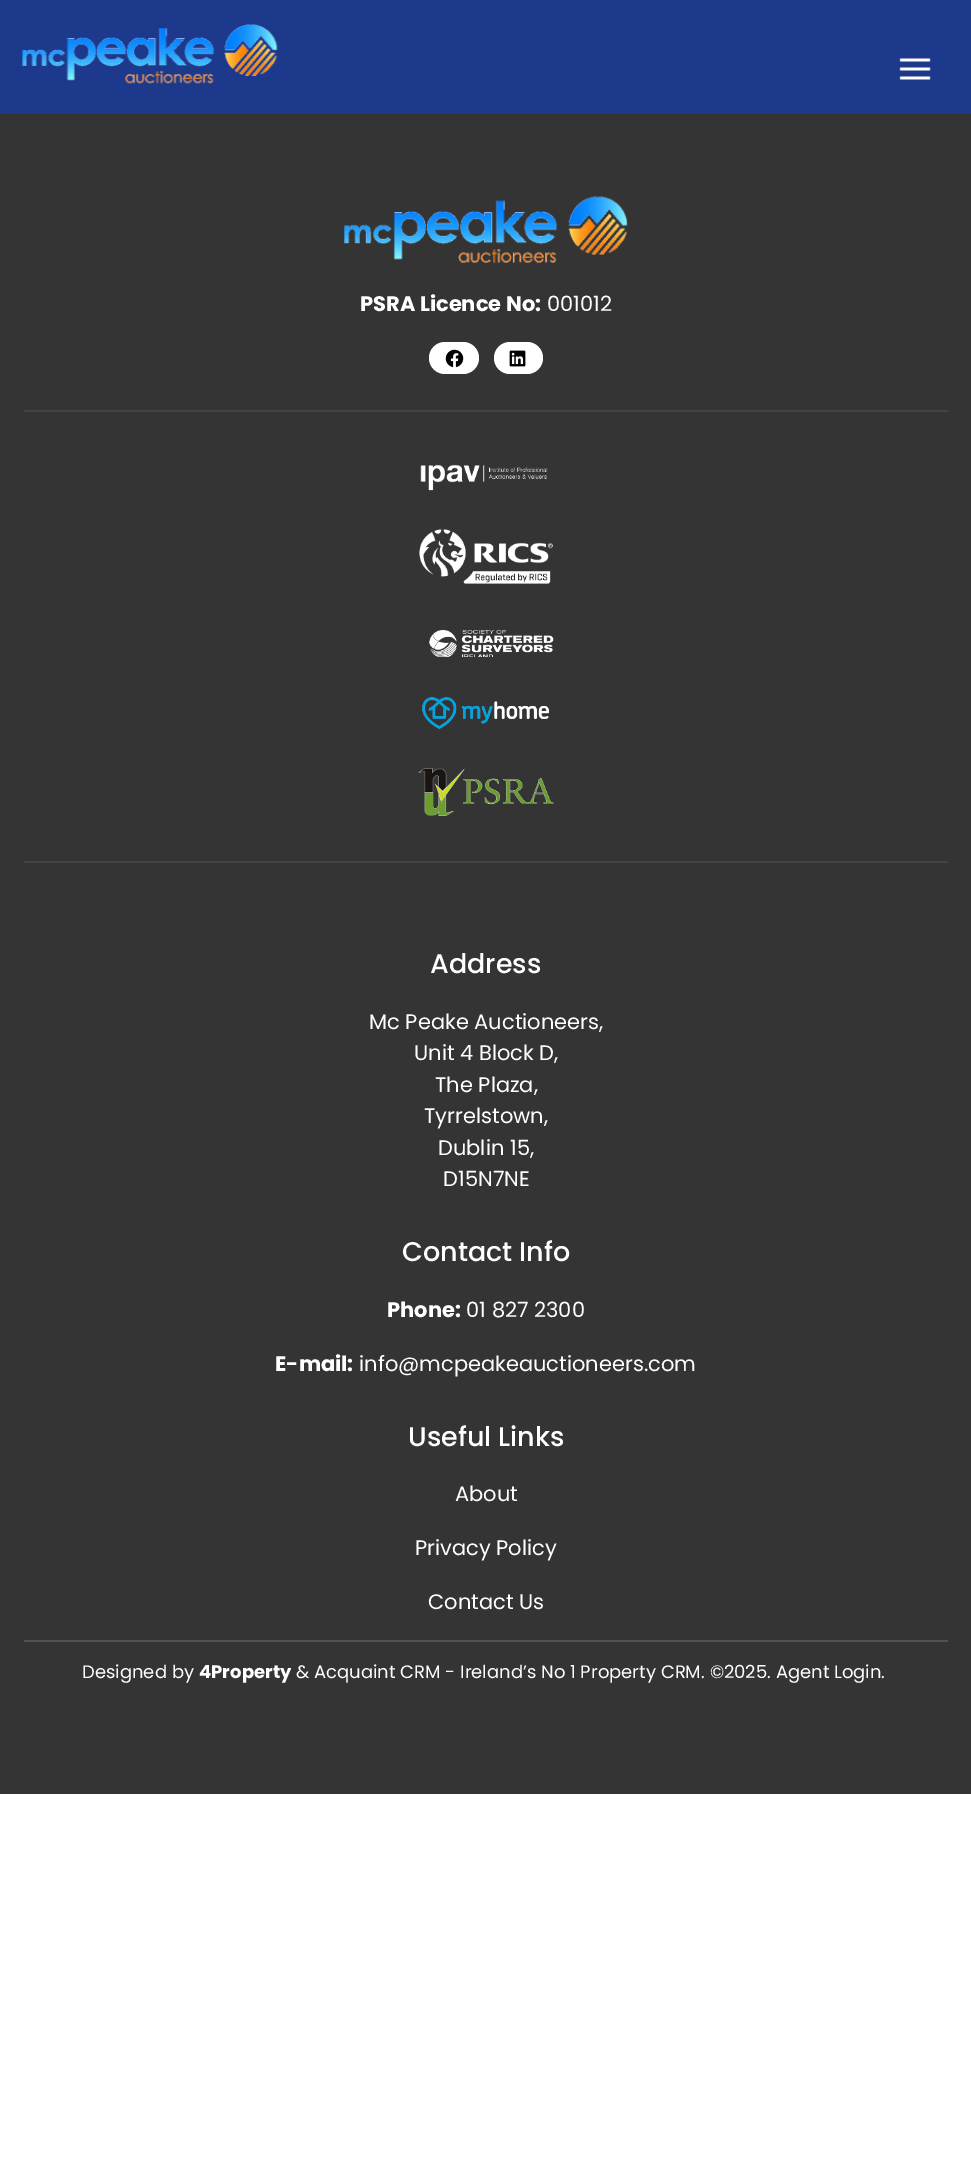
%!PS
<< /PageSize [971 2183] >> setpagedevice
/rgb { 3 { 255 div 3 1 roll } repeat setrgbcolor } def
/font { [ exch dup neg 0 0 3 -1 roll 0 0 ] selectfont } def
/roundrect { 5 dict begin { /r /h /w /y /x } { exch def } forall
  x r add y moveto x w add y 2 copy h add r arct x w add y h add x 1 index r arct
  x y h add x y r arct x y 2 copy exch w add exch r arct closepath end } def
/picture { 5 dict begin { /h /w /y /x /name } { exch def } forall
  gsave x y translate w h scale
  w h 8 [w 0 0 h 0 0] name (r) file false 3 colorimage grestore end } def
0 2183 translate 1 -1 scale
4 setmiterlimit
255 255 255 rgb
0 0 971 2183 rectfill
29 57 140 rgb
0 0 971 114 rectfill
(img/1.rgb) 22 24 256 60 picture
(img/2.rgb) 899 58 32 22 picture
52 52 52 rgb
0 114 971 1680 rectfill
(img/3.rgb) 343 196 285 67 picture
255 255 255 rgb
429 342 50 32 16 roundrect fill
(img/4.rgb) 445 349 19 19 picture
494 342 49 32 16 roundrect fill
(img/5.rgb) 509 350 17 17 picture
67 67 67 rgb
24 410 924 2 rectfill
24 861 924 2 rectfill
(img/6.rgb) 420 464 128 27 picture
(img/7.rgb) 419 529 134 55 picture
(img/8.rgb) 429 630 125 27 picture
(img/9.rgb) 422 697 127 33 picture
(img/10.rgb) 418 768 136 48 picture
82 82 82 rgb
24 1640 924 2 rectfill
/Poppins-Bold 21 font
255 255 255 rgb
360 311 moveto (PSRA Licence No:) show
/Poppins-Regular 21 font
547 311 moveto (001012) show
/Poppins-Medium 27 font
430 973 moveto (Address) show
/Poppins-Regular 21 font
[
  [(Mc Peake Auctioneers,) 369 1029]
  [(Unit 4 Block D,) 414 1060]
  [(The Plaza,) 435 1092]
  [(Tyrrelstown,) 424 1123]
  [(Dublin 15,) 438 1155]
  [(D15N7NE) 443 1186]
] { aload pop moveto show } forall
/Poppins-Medium 27 font
402 1261 moveto (Contact Info) show
/Poppins-Bold 21 font
387 1317 moveto (Phone:) show
/Poppins-Regular 21 font
466 1317 moveto (01 827 2300) show
/Poppins-Bold 21 font
275 1371 moveto (E-mail:) show
/Poppins-Regular 21 font
359 1371 moveto (info@mcpeakeauctioneers.com) show
/Poppins-Medium 27 font
408 1446 moveto (Useful Links) show
/Poppins-Regular 21 font
[
  [(About) 455 1501]
  [(Privacy Policy) 415 1555]
  [(Contact Us) 428 1609]
] { aload pop moveto show } forall
/Poppins-Regular 18 font
82 1678 moveto (Designed by) show
/Poppins-Bold 18 font
199 1678 moveto (4Property) show
/Poppins-Regular 18 font
296 1678 moveto (& Acquaint CRM - Ireland’s No 1 Property CRM. ©2025. Agent Login.) show
showpage
